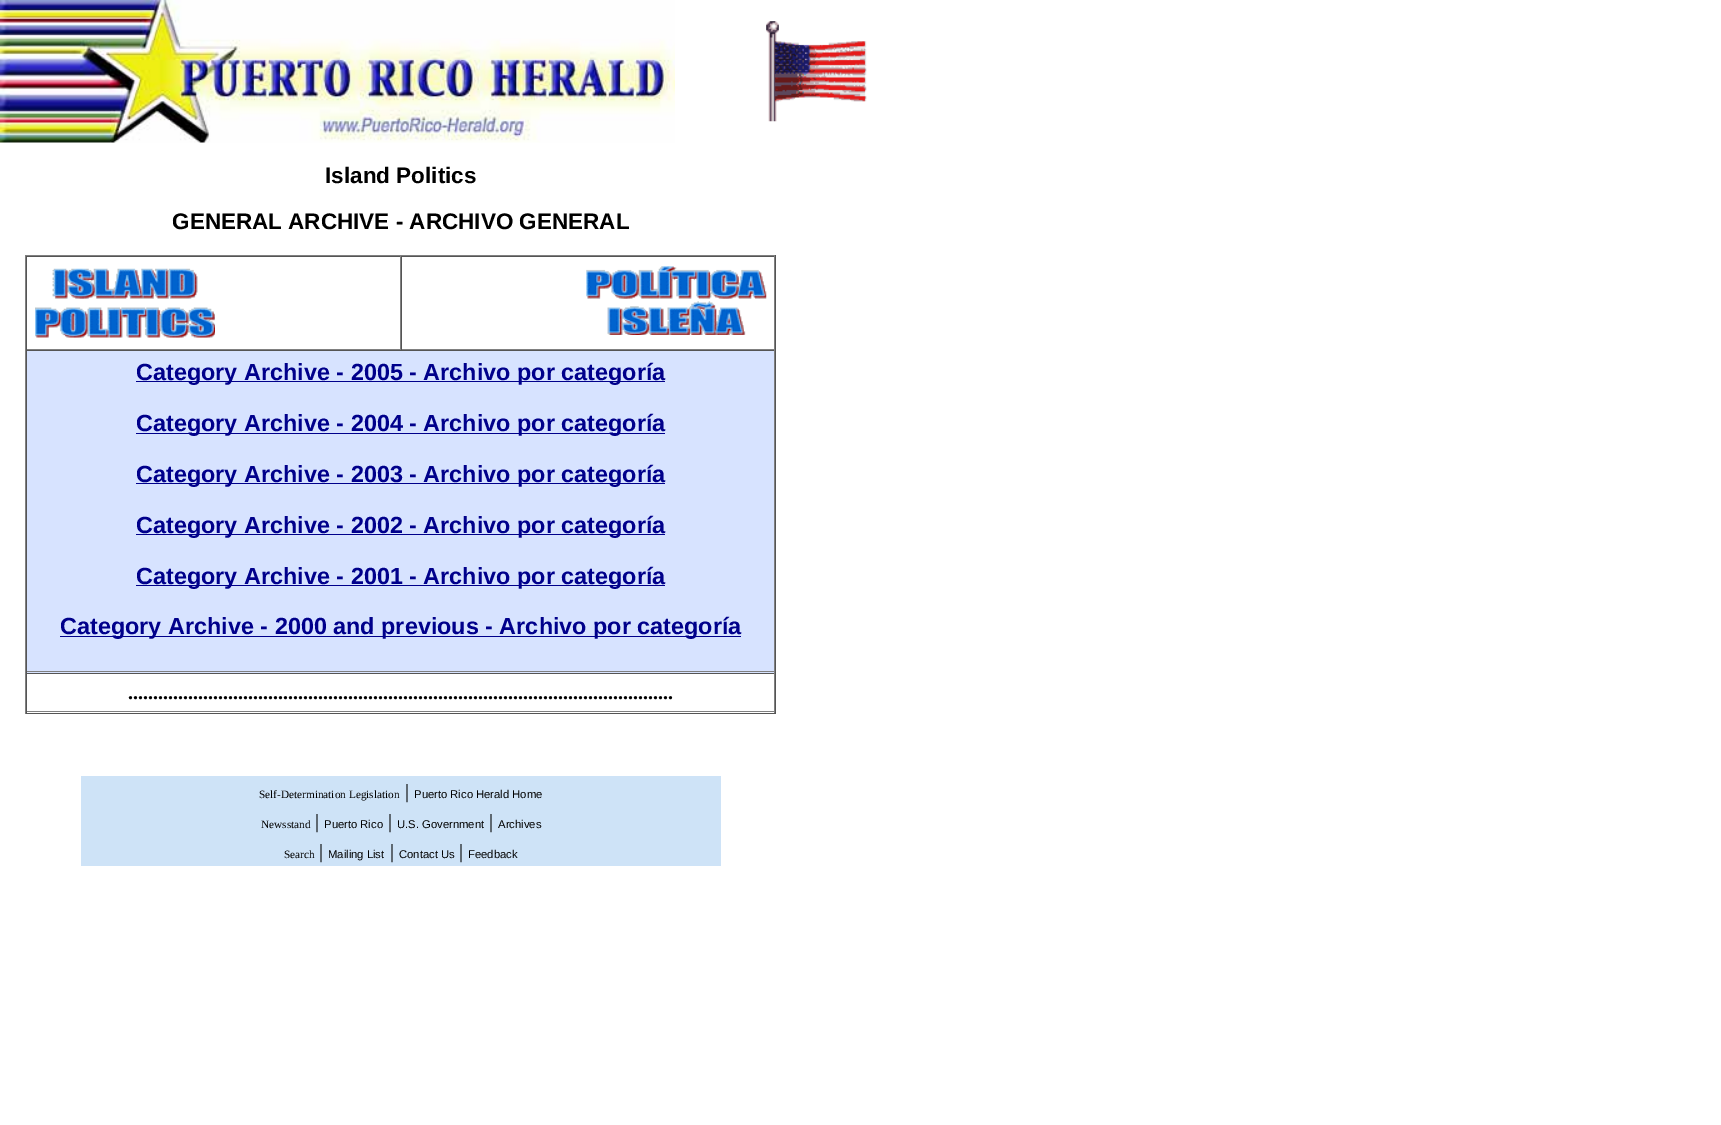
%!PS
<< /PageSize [1721 1125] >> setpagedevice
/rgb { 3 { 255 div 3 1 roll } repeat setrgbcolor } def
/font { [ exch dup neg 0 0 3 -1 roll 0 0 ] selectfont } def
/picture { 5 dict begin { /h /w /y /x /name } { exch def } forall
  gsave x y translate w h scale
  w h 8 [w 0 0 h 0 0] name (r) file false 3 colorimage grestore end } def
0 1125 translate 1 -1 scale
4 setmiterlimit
255 255 255 rgb
0 0 1721 1125 rectfill
(img/1.rgb) 0 0 675 143 picture
(img/2.rgb) 766 21 101 101 picture
[
  [25 255 751 1 128 128 128]
  [775 255 1 459 85 85 85]
  [25 713 751 1 85 85 85]
  [25 255 1 459 128 128 128]
  [26 256 749 1 85 85 85]
  [400 256 1 94 128 128 128]
  [26 349 375 1 128 128 128]
  [26 256 1 94 85 85 85]
] { aload pop rgb rectfill } forall
(img/3.rgb) 35 268 180 70 picture
[
  [774 256 1 94 128 128 128]
  [401 349 374 1 128 128 128]
  [401 256 1 94 85 85 85]
] { aload pop rgb rectfill } forall
(img/4.rgb) 586 266 181 69 picture
[
  [27 351 747 322 215 227 255]
  [26 350 749 1 85 85 85]
  [774 350 1 323 128 128 128]
  [26 671 749 1 128 128 128]
  [26 350 1 323 85 85 85]
  [136 381 529 1 0 0 139]
  [136 433 529 1 0 0 139]
  [136 483 529 1 0 0 139]
  [136 534 529 1 0 0 139]
  [136 585 529 1 0 0 139]
  [60 636 681 1 0 0 139]
  [26 673 749 1 85 85 85]
  [774 673 1 40 128 128 128]
  [26 711 749 1 128 128 128]
  [26 673 1 40 85 85 85]
  [81 776 640 90 206 227 247]
] { aload pop rgb rectfill } forall
/LiberationSans-Bold 22.5 font
0 0 0 rgb
325 183 moveto (Island Politics) show
172 229 moveto (GENERAL ARCHIVE - ARCHIVO GENERAL) show
/LiberationSans-Bold 23.4 font
0 0 139 rgb
[
  [(Category Archive - 2005 - Archivo por categoría) 136 380]
  [(Category Archive - 2004 - Archivo por categoría) 136 431]
  [(Category Archive - 2003 - Archivo por categoría) 136 482]
  [(Category Archive - 2002 - Archivo por categoría) 136 533]
  [(Category Archive - 2001 - Archivo por categoría) 136 584]
  [(Category Archive - 2000 and previous - Archivo por categoría) 60 634]
] { aload pop moveto show } forall
/LiberationSerif-Bold 20 font
0 0 0 rgb
128 699 moveto (.............................................................................................................) show
/LiberationSerif-Regular 11.25 font
259 798 moveto (Self-Determination Legislation) show
/LiberationSerif-Regular 20 font
405 798 moveto (|) show
/LiberationSans-Regular 11.25 font
414 798 moveto (Puerto Rico Herald Home) show
/LiberationSerif-Regular 11.25 font
261 828 moveto (Newsstand) show
/LiberationSerif-Regular 20 font
315 828 moveto (|) show
/LiberationSans-Regular 11.25 font
324 828 moveto (Puerto Rico) show
/LiberationSerif-Regular 20 font
388 828 moveto (|) show
/LiberationSans-Regular 11.25 font
397 828 moveto (U.S. Government) show
/LiberationSerif-Regular 20 font
489 828 moveto (|) show
/LiberationSans-Regular 11.25 font
498 828 moveto (Archives) show
/LiberationSerif-Regular 11.25 font
284 858 moveto (Search) show
/LiberationSerif-Regular 20 font
319 858 moveto (|) show
/LiberationSans-Regular 11.25 font
328 858 moveto (Mailing List) show
/LiberationSerif-Regular 20 font
390 858 moveto (|) show
/LiberationSans-Regular 11.25 font
399 858 moveto (Contact Us) show
/LiberationSerif-Regular 20 font
459 858 moveto (|) show
/LiberationSans-Regular 11.25 font
468 858 moveto (Feedback) show
showpage
